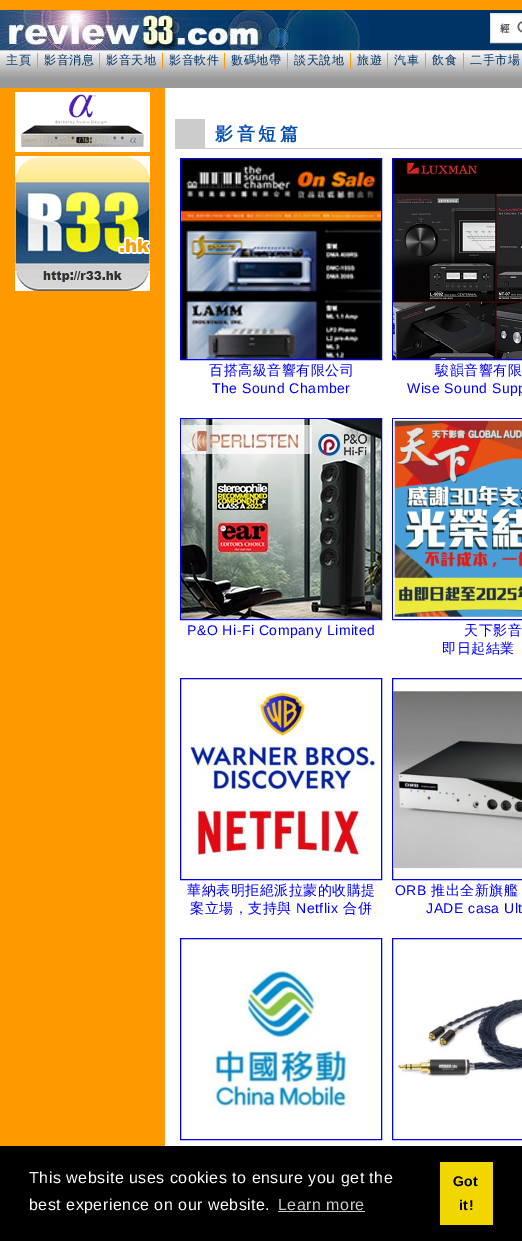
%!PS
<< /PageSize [522 1241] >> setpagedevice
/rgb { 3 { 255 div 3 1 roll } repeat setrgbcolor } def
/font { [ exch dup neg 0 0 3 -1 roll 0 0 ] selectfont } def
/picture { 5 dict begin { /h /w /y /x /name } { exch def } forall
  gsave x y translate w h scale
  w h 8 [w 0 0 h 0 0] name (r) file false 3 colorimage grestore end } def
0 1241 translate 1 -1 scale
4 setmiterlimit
0 51 102 rgb
0 0 522 1241 rectfill
(img/1.rgb) 0 10 369 40 picture
255 153 0 rgb
0 0 522 10 rectfill
255 255 255 rgb
490.5 13.5 moveto 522.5 13.5 lineto 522.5 42.5 lineto 490.5 42.5 lineto closepath gsave fill grestore
223 225 229 rgb
stroke
(img/2.rgb) 500 21 22 12 picture
(img/3.rgb) 0 50 522 38 picture
[
  [37 53 1 16 255 153 0]
  [99 53 1 16 255 153 0]
  [162 53 1 16 255 153 0]
  [224 53 1 16 255 153 0]
  [287 53 1 16 255 153 0]
  [350 53 1 16 255 153 0]
  [387 53 1 16 255 153 0]
  [425 53 1 16 255 153 0]
  [463 53 1 16 255 153 0]
  [0 88 165 1058 255 153 0]
  [15 92 135 60 255 255 255]
] { aload pop rgb rectfill } forall
(img/4.rgb) 15 94 135 53 picture
(img/5.rgb) 15 156 135 135 picture
[
  [165 88 357 1058 255 255 255]
  [205 148 317 1 204 204 204]
  [175 119 30 30 204 204 204]
] { aload pop rgb rectfill } forall
0 0 238 rgb
180.5 158.5 201 201 rectstroke
(img/6.rgb) 181 159 200 200 picture
392.5 158.5 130 201 rectstroke
(img/7.rgb) 393 159 129 200 picture
180.5 418.5 201 201 rectstroke
(img/8.rgb) 181 419 200 200 picture
392.5 418.5 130 201 rectstroke
(img/9.rgb) 393 419 129 200 picture
180.5 678.5 201 201 rectstroke
(img/10.rgb) 186 690 192 167 picture
392.5 678.5 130 201 rectstroke
(img/11.rgb) 393 691 129 178 picture
180.5 938.5 201 201 rectstroke
(img/12.rgb) 209 967 142 143 picture
392.5 938.5 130 201 rectstroke
(img/13.rgb) 394 998 128 79 picture
[
  [0 1146 522 95 0 0 0]
  [278 1211 87 1 204 204 204]
  [440 1162 53 63 241 214 0]
] { aload pop rgb rectfill } forall
/WenQuanYiZenHei-Medium 12 font
0 51 102 rgb
6 64 moveto 0.5 0 (主頁) ashow
44 64 moveto 0.5 0 (影音消息) ashow
106 64 moveto 0.5 0 (影音天地) ashow
169 64 moveto 0.5 0 (影音軟件) ashow
231 64 moveto 0.5 0 (數碼地帶) ashow
294 64 moveto 0.5 0 (談天說地) ashow
357 64 moveto 0.5 0 (旅遊) ashow
394 64 moveto 0.5 0 (汽車) ashow
432 64 moveto 0.5 0 (飲食) ashow
470 64 moveto 0.5 0 (二手市場) ashow
/WenQuanYiZenHei-Bold 18 font
8 80 178 rgb
215 140 moveto 3.5 0 (影音短篇) ashow
/WenQuanYiZenHei-Medium 14 font
0 0 255 rgb
209 375 moveto 0.5 0 (百搭高級音響有限公司) ashow
/LiberationSans-Regular 14 font
212 393 moveto 0.5 0 (The Sound Chamber) ashow
/WenQuanYiZenHei-Medium 14 font
435 375 moveto 0.5 0 (駿韻音響有限) ashow
/LiberationSans-Regular 14 font
407 393 moveto 0.5 0 (Wise Sound Supp) ashow
187 635 moveto 0.5 0 (P&O Hi-Fi Company Limited) ashow
/WenQuanYiZenHei-Medium 14 font
464 635 moveto 0.5 0 (天下影音) ashow
442 653 moveto 0.5 0 (即日起結業) ashow
187 895 moveto 0.5 0 (華納表明拒絕派拉蒙的收購提) ashow
190 913 moveto 0.5 0 (案立場，支持與) ashow
/LiberationSans-Regular 14 font
296 913 moveto 0.5 0 (Netflix) ashow
/WenQuanYiZenHei-Medium 14 font
343 913 moveto 0.5 0 (合併) ashow
/LiberationSans-Regular 14 font
395 895 moveto 0.5 0 (ORB) ashow
/WenQuanYiZenHei-Medium 14 font
431 895 moveto 0.5 0 (推出全新旗艦) ashow
/LiberationSans-Regular 14 font
426 913 moveto 0.5 0 (JADE casa Ult) ashow
/LiberationSans-Regular 16 font
255 255 255 rgb
29 1183 moveto 0.5 0 (This website uses cookies to ensure you get the) ashow
29 1210 moveto 0.5 0 (best experience on our website.) ashow
204 204 204 rgb
278 1210 moveto 0.5 0 (Learn more) ashow
/LiberationSans-Bold 14 font
0 0 0 rgb
453 1186 moveto 0.5 0 (Got) ashow
459 1210 moveto 0.5 0 (it!) ashow
showpage
